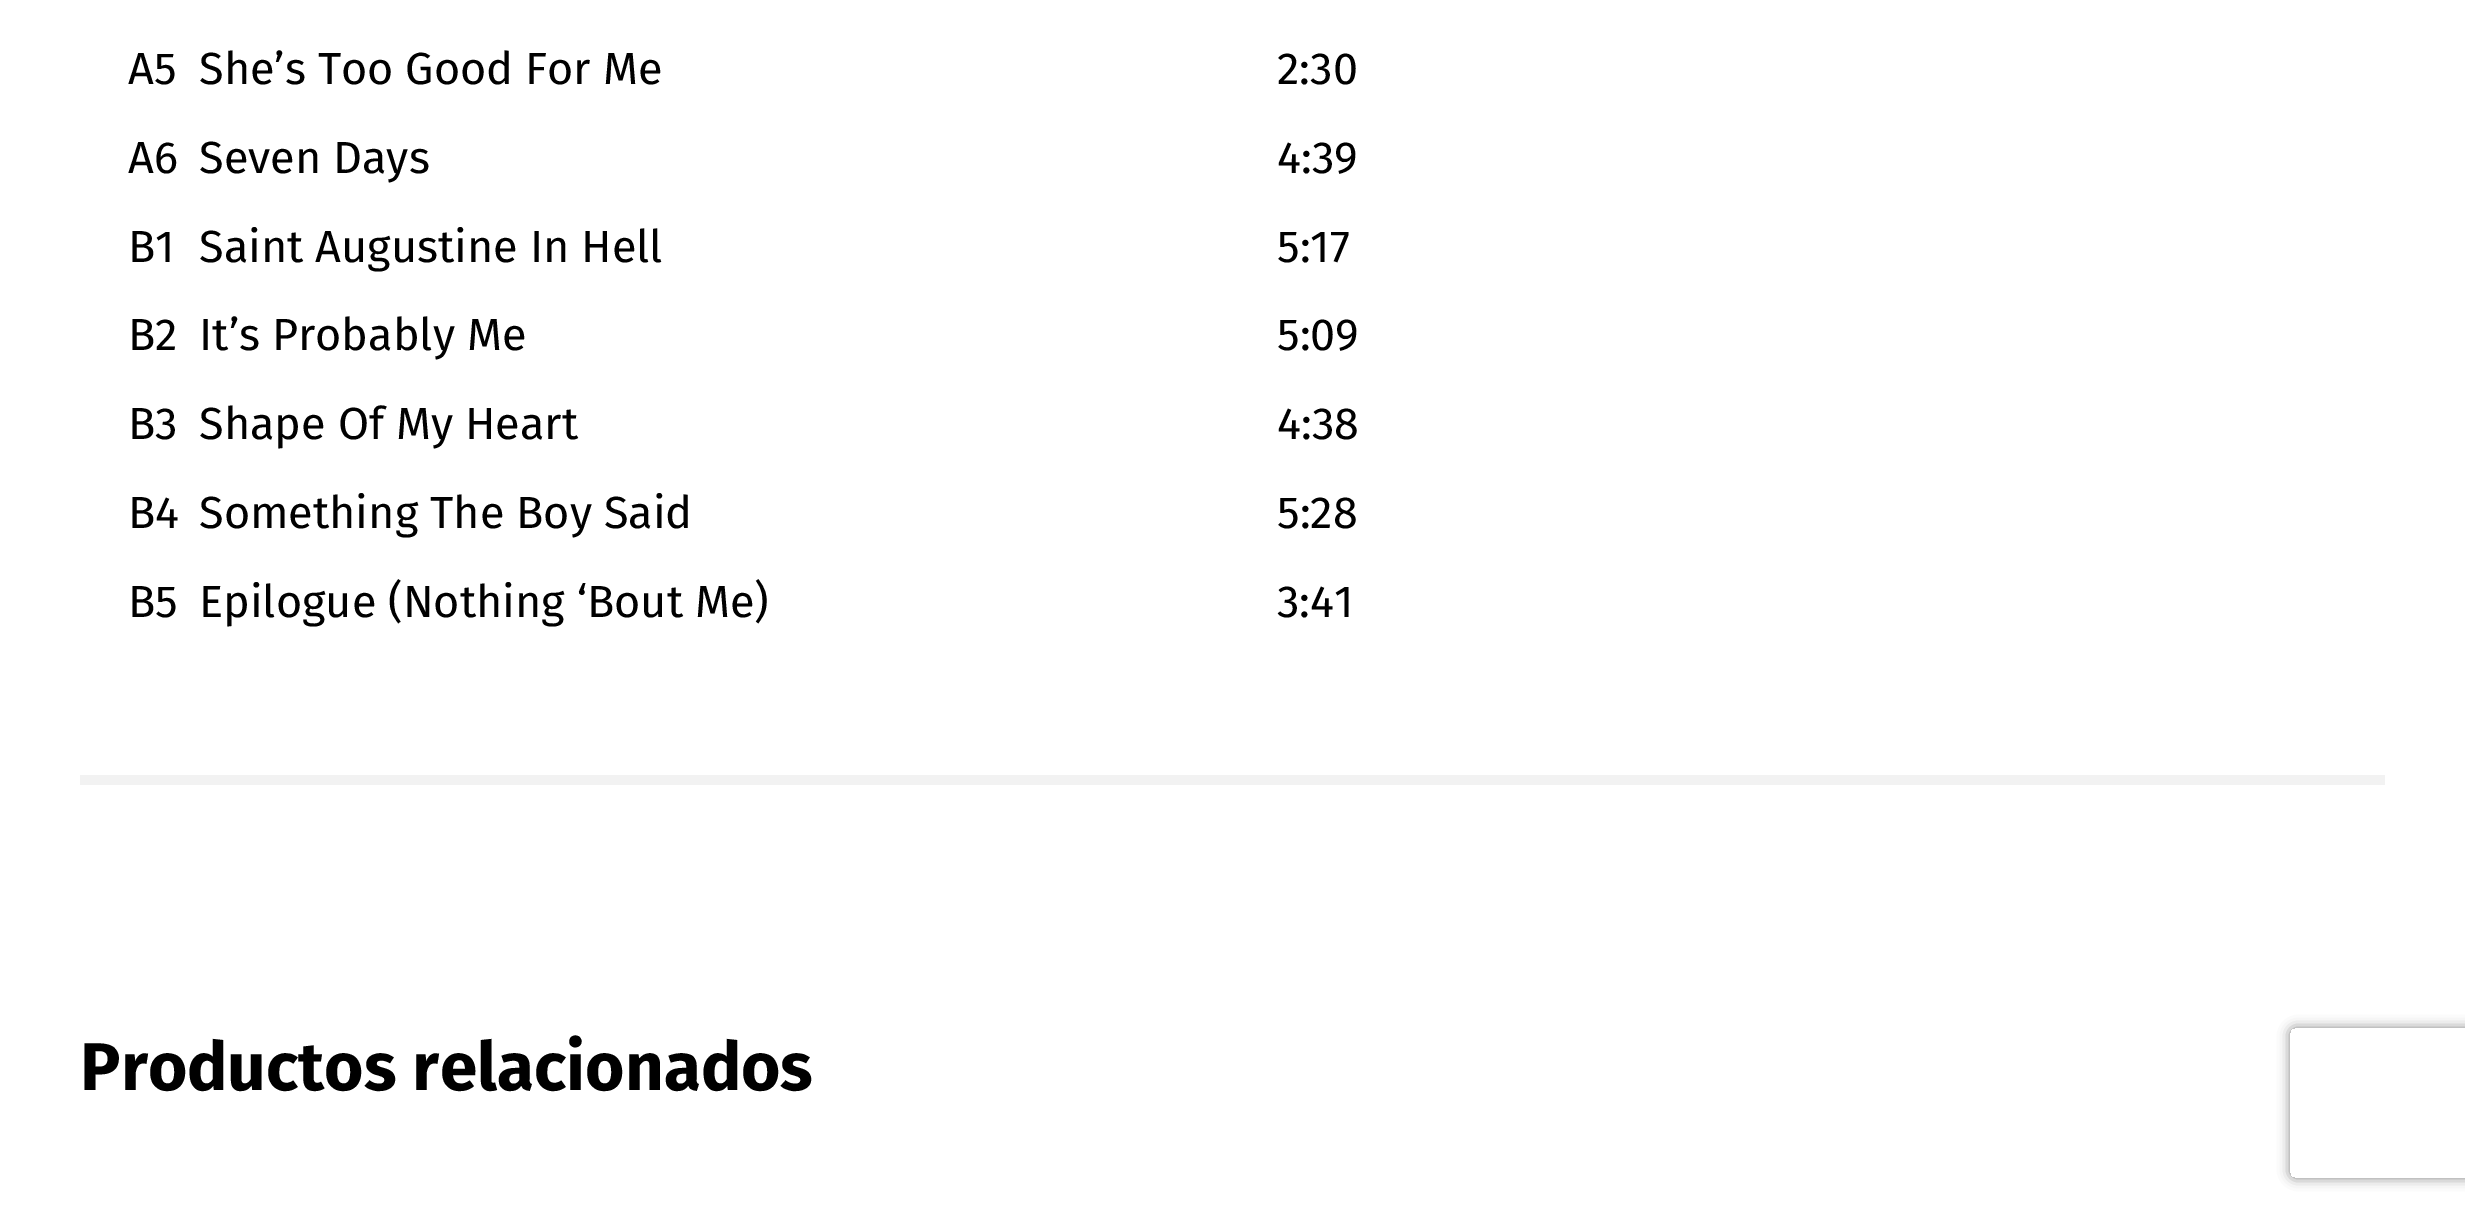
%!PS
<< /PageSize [2465 1212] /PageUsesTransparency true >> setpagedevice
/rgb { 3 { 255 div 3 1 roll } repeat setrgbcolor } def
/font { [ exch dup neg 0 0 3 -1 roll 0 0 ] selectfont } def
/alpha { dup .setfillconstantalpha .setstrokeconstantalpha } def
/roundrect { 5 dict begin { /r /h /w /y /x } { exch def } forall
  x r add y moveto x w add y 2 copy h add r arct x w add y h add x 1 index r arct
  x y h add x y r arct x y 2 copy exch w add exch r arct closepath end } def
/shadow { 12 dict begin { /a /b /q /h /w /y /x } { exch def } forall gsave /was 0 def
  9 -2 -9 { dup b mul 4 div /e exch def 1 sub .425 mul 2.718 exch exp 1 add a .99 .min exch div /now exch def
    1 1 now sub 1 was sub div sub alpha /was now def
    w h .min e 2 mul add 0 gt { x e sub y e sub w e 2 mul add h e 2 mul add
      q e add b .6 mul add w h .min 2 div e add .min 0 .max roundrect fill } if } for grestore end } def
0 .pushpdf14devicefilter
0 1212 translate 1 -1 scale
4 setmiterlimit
255 255 255 rgb
0 0 2465 1212 rectfill
242 242 242 rgb
80 775 2305 10 rectfill
gsave
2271 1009 moveto 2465 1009 lineto 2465 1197 lineto 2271 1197 lineto closepath 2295 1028 moveto 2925 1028 lineto 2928 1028 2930 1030 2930 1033 curveto 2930 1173 lineto 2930 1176 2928 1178 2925 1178 curveto 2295 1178 lineto 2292 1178 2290 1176 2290 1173 curveto 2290 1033 lineto 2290 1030 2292 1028 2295 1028 curveto closepath eoclip newpath
128 128 128 rgb
2290 1028 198 150 5 6 1 shadow
grestore
/FiraSans-Regular 45 font
0 0 0 rgb
[
  [(A5) 128 84]
  [(She’s Too Good For Me) 199 84]
  [(2:30) 1277 84]
  [(A6) 128 173]
  [(Seven Days) 199 173]
  [(4:39) 1277 173]
  [(B1) 128 262]
  [(Saint Augustine In Hell) 199 262]
  [(5:17) 1277 262]
  [(B2) 128 350]
  [(It’s Probably Me) 199 350]
  [(5:09) 1277 350]
  [(B3) 128 439]
  [(Shape Of My Heart) 199 439]
  [(4:38) 1277 439]
  [(B4) 128 528]
  [(Something The Boy Said) 199 528]
  [(5:28) 1277 528]
  [(B5) 128 617]
  [(Epilogue \(Nothing ‘Bout Me\)) 199 617]
  [(3:41) 1277 617]
] { aload pop moveto show } forall
/FiraSans-Bold 67.5 font
80 1090 moveto (Productos relacionados) show
.poppdf14devicefilter showpage
